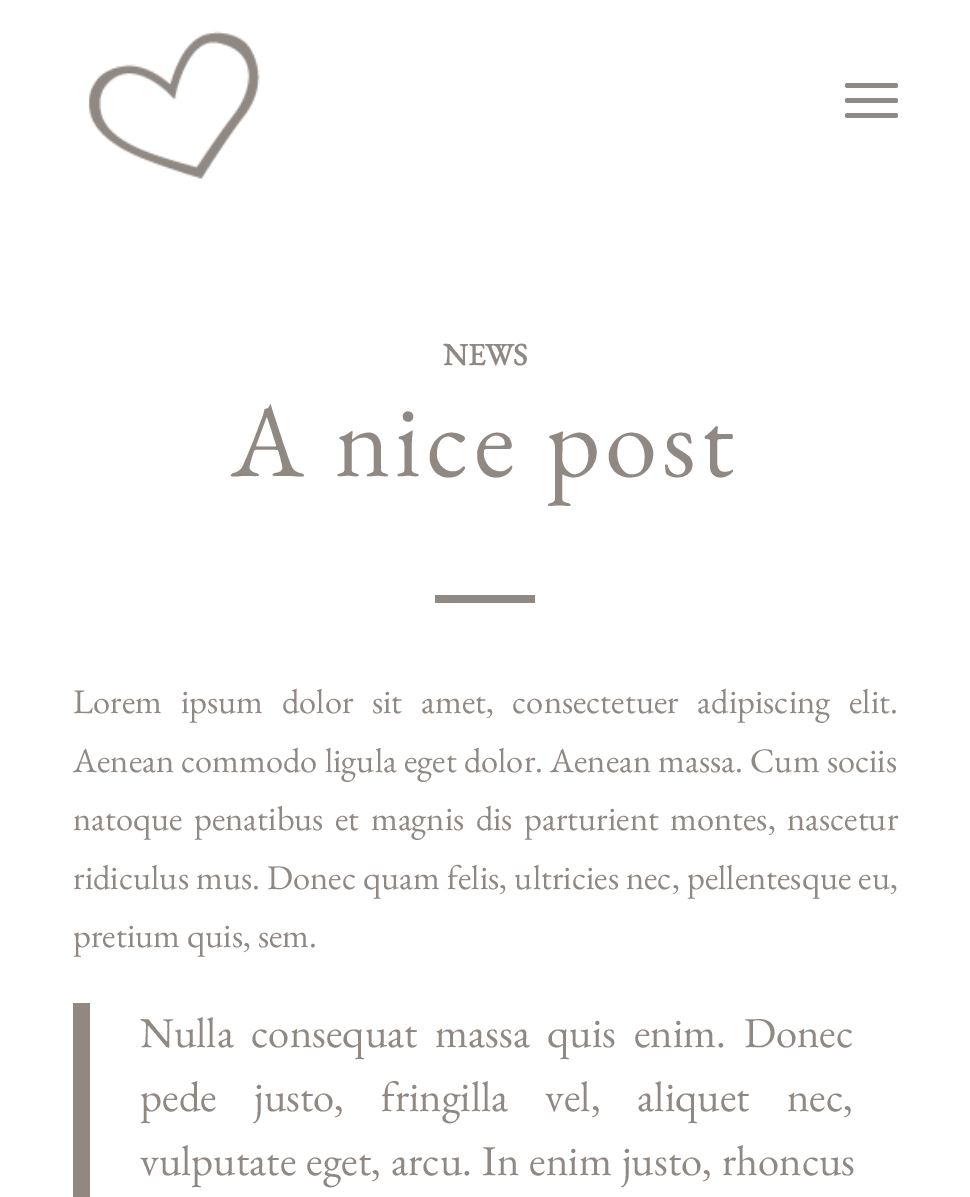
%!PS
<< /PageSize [970 1197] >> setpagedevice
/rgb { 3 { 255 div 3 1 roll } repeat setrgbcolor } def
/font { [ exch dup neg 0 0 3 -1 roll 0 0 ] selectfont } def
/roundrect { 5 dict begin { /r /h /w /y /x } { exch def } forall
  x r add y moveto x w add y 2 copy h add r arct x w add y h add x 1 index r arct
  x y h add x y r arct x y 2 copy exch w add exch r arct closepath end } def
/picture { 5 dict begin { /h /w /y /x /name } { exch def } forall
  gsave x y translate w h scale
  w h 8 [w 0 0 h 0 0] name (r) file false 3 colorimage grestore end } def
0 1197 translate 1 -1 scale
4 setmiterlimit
255 255 255 rgb
0 0 970 1197 rectfill
(img/1.rgb) 88 31 172 148 picture
144 136 131 rgb
845 98 53 5 2.5 roundrect fill
845 83 53 5 2.5 roundrect fill
845 113 53 5 2.5 roundrect fill
435 595 100 8 rectfill
73 1003 17 194 rectfill
/EBGaramond-Bold 31 font
443 365 moveto (NEWS) show
/EBGaramond-Regular 105 font
231 476 moveto 5 0 (A nice post) ashow
/EBGaramond-Regular 34.5 font
73 713 moveto 11.75 0 32 (Lorem ipsum dolor sit amet, consectetuer adipiscing elit.) widthshow
73 772 moveto 0.25 0 32 (Aenean commodo ligula eget dolor. Aenean massa. Cum sociis) widthshow
73 830 moveto 4.5 0 32 (natoque penatibus et magnis dis parturient montes, nascetur) widthshow
73 889 moveto 0.25 0 32 (ridiculus mus. Donec quam felis, ultricies nec, pellentesque eu,) widthshow
73 947 moveto (pretium quis, sem.) show
/EBGaramond-Regular 42.6 font
140 1047 moveto 9 0 32 (Nulla consequat massa quis enim. Donec) widthshow
140 1111 moveto 28.5 0 32 (pede justo, fringilla vel, aliquet nec,) widthshow
140 1175 moveto 1.5 0 32 (vulputate eget, arcu. In enim justo, rhoncus) widthshow
showpage
